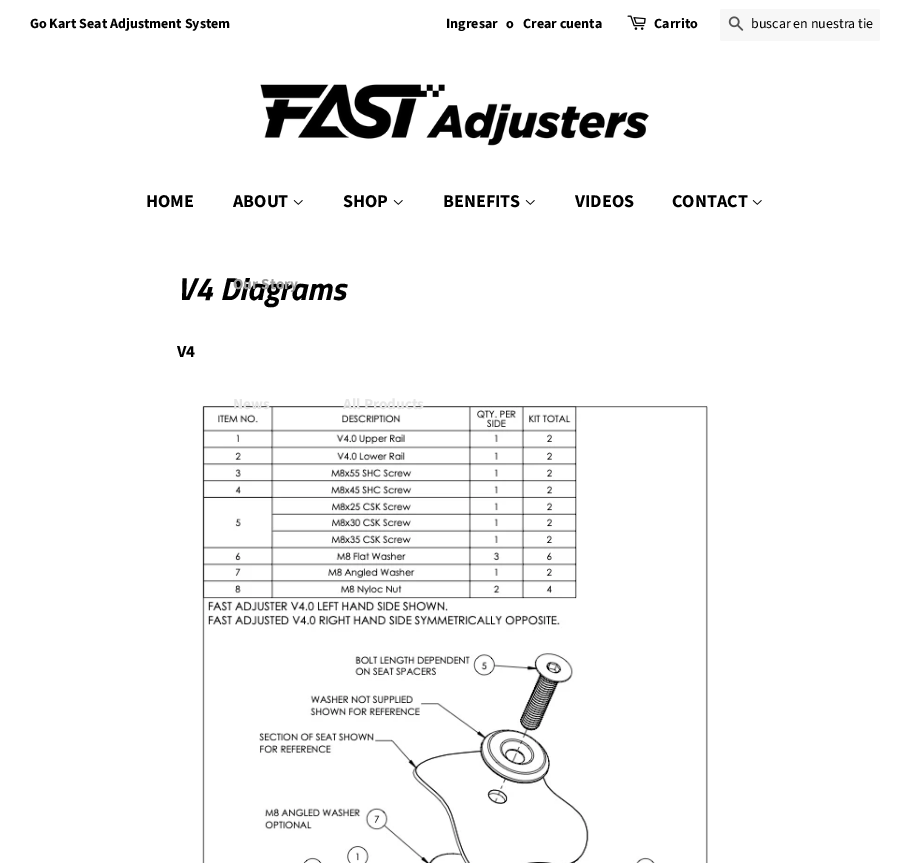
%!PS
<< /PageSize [910 863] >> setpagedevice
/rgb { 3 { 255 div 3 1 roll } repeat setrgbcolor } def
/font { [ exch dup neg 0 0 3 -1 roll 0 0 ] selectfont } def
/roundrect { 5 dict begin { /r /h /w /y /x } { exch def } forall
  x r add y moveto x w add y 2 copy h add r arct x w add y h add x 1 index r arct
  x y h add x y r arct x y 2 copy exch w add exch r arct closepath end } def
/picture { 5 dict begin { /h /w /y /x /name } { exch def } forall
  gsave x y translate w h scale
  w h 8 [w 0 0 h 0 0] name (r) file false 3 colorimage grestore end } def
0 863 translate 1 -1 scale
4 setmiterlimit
255 255 255 rgb
0 0 910 863 rectfill
(img/1.rgb) 627 15 19 15 picture
247 247 247 rgb
720 9 160 32 2 roundrect fill
(img/2.rgb) 728 16 16 15 picture
(img/3.rgb) 260 84 389 62 picture
(img/4.rgb) 293 200 10 5 picture
(img/4.rgb) 393 200 10 5 picture
(img/4.rgb) 525 200 10 5 picture
(img/4.rgb) 752 200 10 5 picture
(img/5.rgb) 202 405 506 458 picture
/SourceSansPro-Bold 14 font
0 0 0 rgb
[
  [(Go Kart Seat Adjustment System) 30 28]
  [(Ingresar) 446 28]
  [(o) 506 28]
  [(Crear cuenta) 523 28]
  [(Carrito) 654 28]
] { aload pop moveto show } forall
/SourceSansPro-Regular 14 font
751 28 moveto (buscar en nuestra tie) show
/SourceSansPro-Bold 18 font
146 207 moveto (HOME) show
233 207 moveto (ABOUT) show
/SourceSansPro-Bold 15.25 font
231 231 231 rgb
233 409 moveto (News) show
/SourceSansPro-Bold 18 font
0 0 0 rgb
343 207 moveto (SHOP) show
/SourceSansPro-Bold 15.25 font
231 231 231 rgb
343 409 moveto (All Products) show
/SourceSansPro-Bold 18 font
0 0 0 rgb
[
  [(BENEFITS) 443 207]
  [(VIDEOS) 575 207]
  [(CONTACT) 672 207]
] { aload pop moveto show } forall
/TitilliumWeb-BoldItalic 32 font
177 300 moveto (V4 Diagrams) show
/SourceSansPro-Bold 15.25 font
158 158 158 rgb
233 289 moveto (Our Story) show
/SourceSansPro-Bold 17 font
0 0 0 rgb
177 357 moveto (V4) show
showpage
